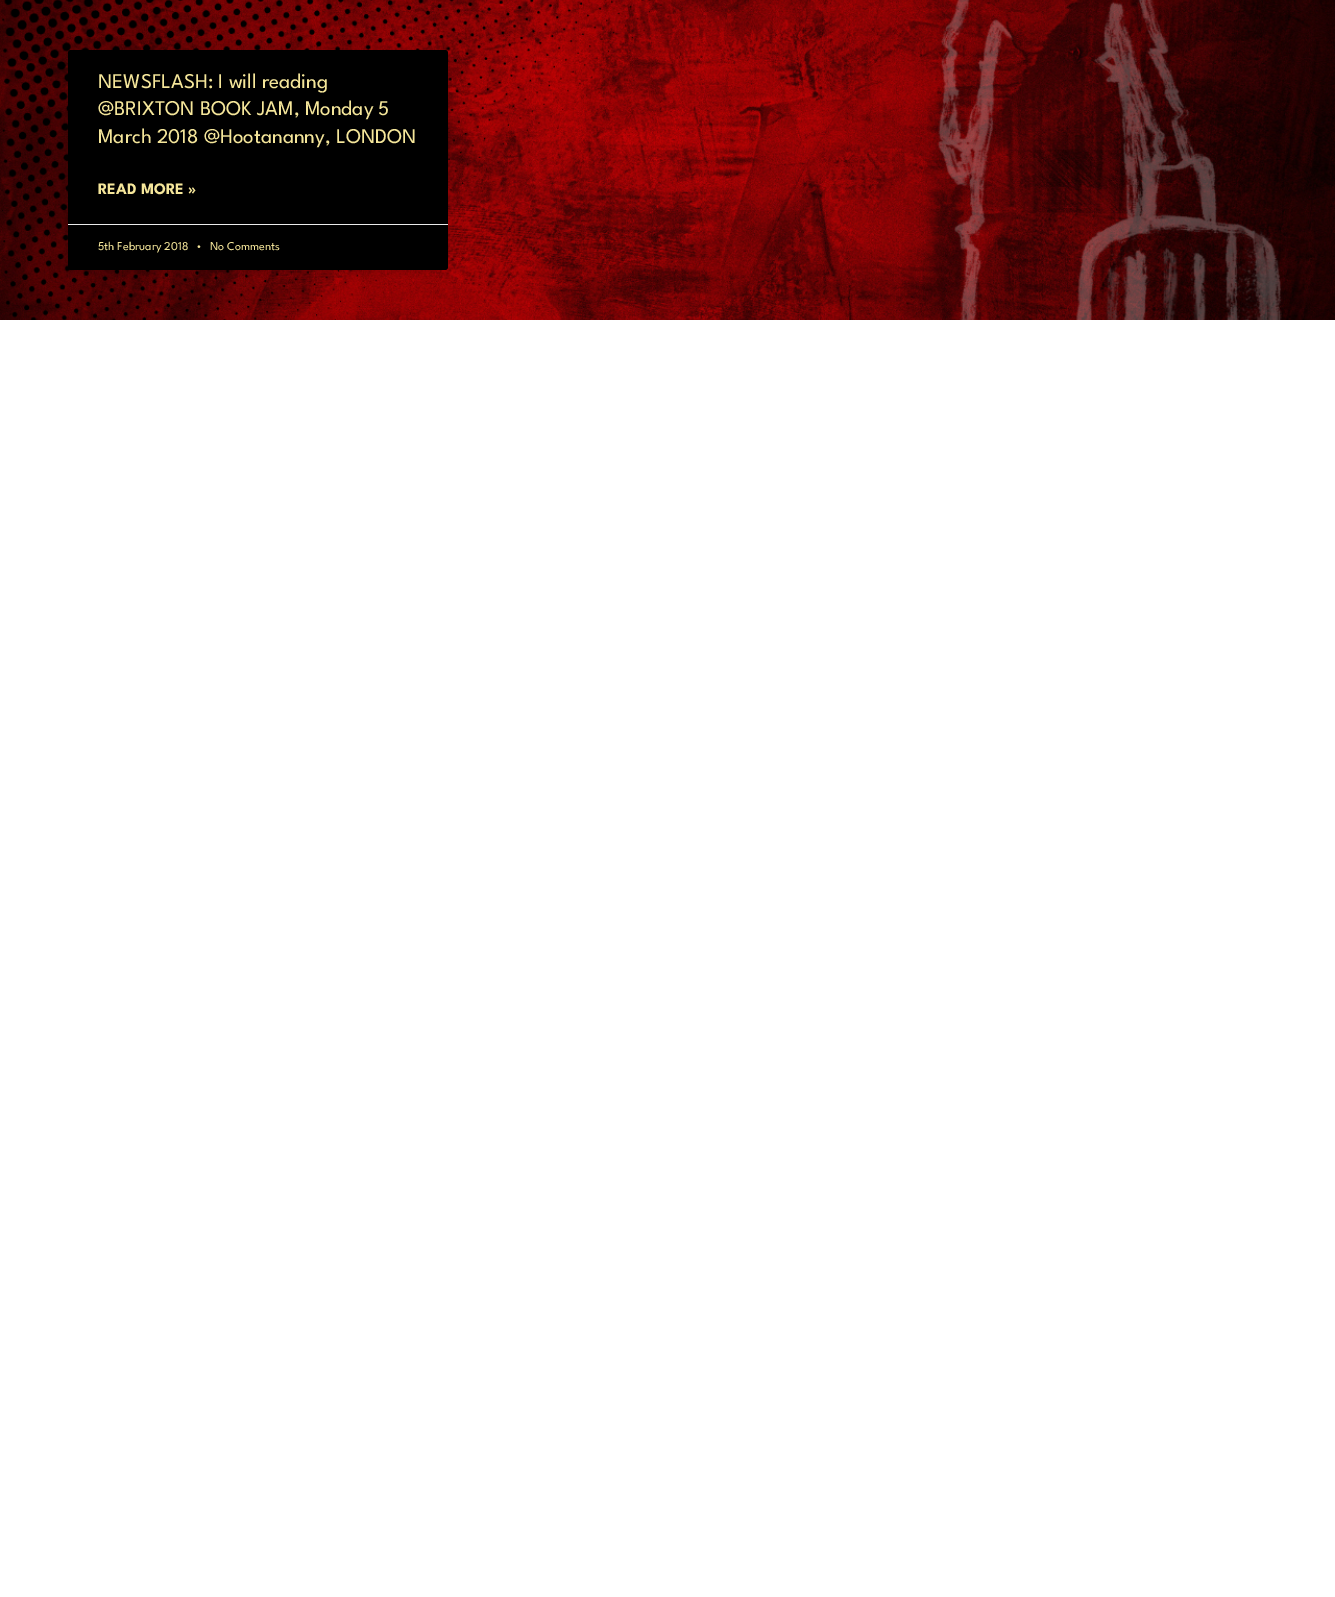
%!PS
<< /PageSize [1335 1597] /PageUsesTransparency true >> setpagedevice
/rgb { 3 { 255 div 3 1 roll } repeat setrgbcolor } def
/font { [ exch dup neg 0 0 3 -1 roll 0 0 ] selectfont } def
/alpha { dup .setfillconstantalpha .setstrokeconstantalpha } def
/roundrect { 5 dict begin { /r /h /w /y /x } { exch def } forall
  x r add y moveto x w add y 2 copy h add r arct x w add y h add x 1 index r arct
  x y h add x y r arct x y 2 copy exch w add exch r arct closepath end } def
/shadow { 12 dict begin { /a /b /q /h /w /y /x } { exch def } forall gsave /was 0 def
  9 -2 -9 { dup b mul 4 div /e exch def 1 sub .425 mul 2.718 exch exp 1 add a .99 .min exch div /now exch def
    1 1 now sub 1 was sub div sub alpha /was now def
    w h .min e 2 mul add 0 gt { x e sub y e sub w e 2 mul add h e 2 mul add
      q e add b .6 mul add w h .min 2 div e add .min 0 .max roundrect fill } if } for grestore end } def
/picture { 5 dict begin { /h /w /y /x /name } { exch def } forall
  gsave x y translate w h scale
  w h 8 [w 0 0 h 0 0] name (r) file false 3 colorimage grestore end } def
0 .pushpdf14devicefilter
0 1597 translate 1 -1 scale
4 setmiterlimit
255 255 255 rgb
0 0 1335 1597 rectfill
(img/1.rgb) 0 0 1335 320 picture
0 0 0 rgb
68 50 380 220 3 5 0.15 shadow
68 50 380 220 3 roundrect fill
234 234 234 rgb
68 224 380 1 rectfill
/LeagueSpartan-Regular 21 font
245 230 154 rgb
[
  [(NEWSFLASH: I will reading) 98 88]
  [(@BRIXTON BOOK JAM, Monday 5) 98 115]
  [(March 2018 @Hootananny, LONDON) 98 143]
] { aload pop moveto show } forall
/LeagueSpartan-Bold 16 font
98 194 moveto (READ MORE ») show
/LeagueSpartan-Regular 12 font
[
  [(5th February 2018) 98 250]
  [(•) 196 250]
  [(No Comments) 210 250]
] { aload pop moveto show } forall
.poppdf14devicefilter showpage
